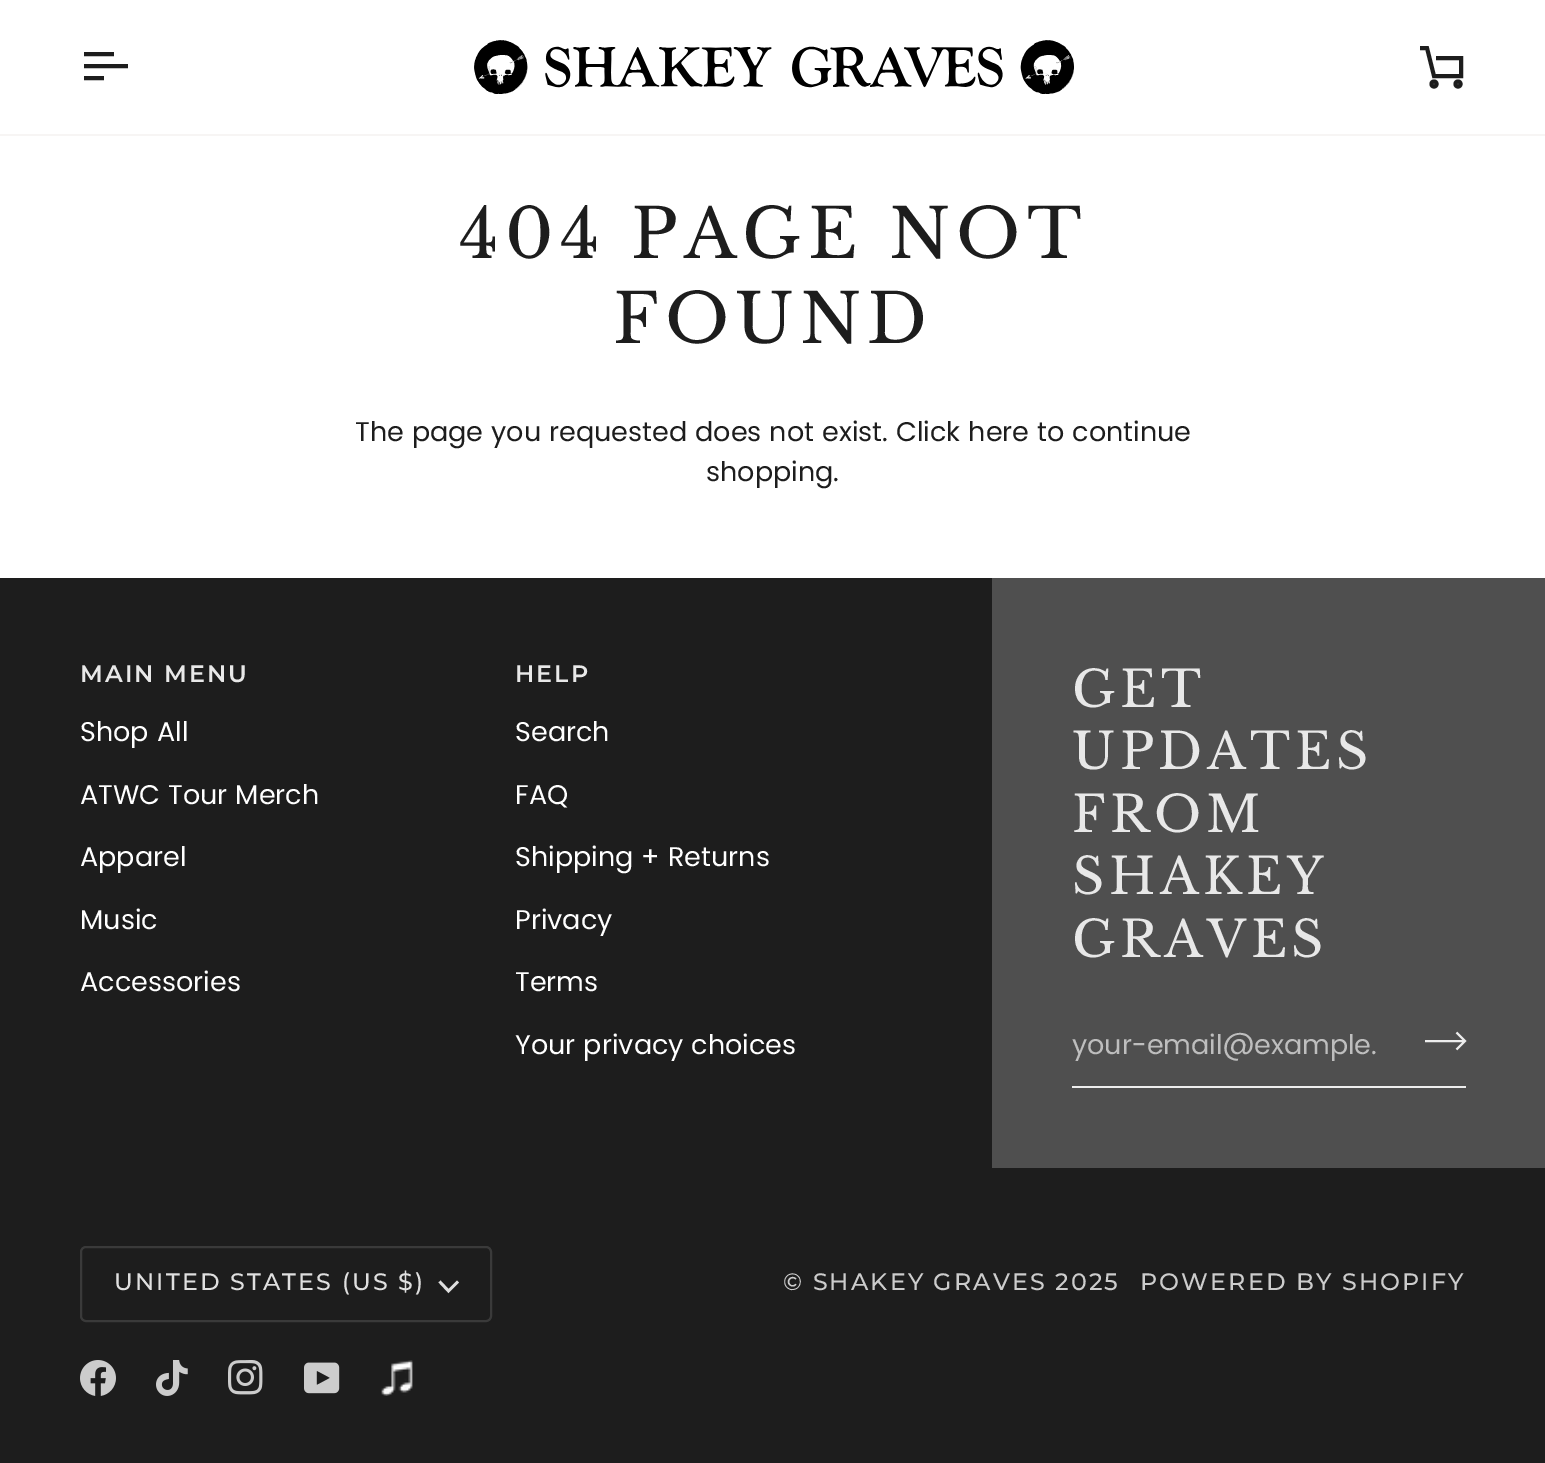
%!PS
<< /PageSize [1545 1463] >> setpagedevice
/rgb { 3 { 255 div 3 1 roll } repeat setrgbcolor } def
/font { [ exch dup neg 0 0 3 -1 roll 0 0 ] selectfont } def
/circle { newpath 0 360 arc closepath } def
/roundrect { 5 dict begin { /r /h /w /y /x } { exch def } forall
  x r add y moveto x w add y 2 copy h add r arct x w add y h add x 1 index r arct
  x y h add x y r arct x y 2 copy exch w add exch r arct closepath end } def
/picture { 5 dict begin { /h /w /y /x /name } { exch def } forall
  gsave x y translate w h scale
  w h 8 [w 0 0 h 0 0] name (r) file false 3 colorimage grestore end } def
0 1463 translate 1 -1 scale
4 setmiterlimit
255 255 255 rgb
0 0 1545 1463 rectfill
247 245 244 rgb
0 134 1545 2 rectfill
29 29 29 rgb
4 setlinewidth
2 setlinecap
112 54 moveto 86 54 lineto 126 66 moveto 86 66 lineto 102 78 moveto 86 78 lineto stroke
(img/1.rgb) 474 40 600 54 picture
0 setlinecap
1420 48 moveto 1427 48 lineto 1434 76 lineto 1461 76 lineto 1461 58 lineto 1436 58 lineto stroke
1434 84 2.5 circle stroke
1458 84 2.5 circle stroke
[
  [0 578 992 590 29 29 29]
  [992 578 553 590 79 79 79]
  [1072 1086 394 2 237 237 237]
] { aload pop rgb rectfill } forall
2.1 setlinewidth
1456.5 1032.5 moveto 1465 1041 lineto 1456.5 1049.5 lineto 1425 1041 moveto 1465 1041 lineto stroke
29 29 29 rgb
0 1168 1545 295 rectfill
58 58 58 rgb
2 setlinewidth
81 1247 410 74 5 roundrect stroke
223 223 223 rgb
2.8 setlinewidth
2 setlinecap
440.5 1282.5 moveto 448.5 1291 lineto 457 1282.5 lineto stroke
(img/2.rgb) 80 1360 36 36 picture
(img/3.rgb) 156 1360 32 36 picture
(img/4.rgb) 228 1360 35 35 picture
(img/5.rgb) 304 1362 36 32 picture
(img/6.rgb) 381 1360 32 36 picture
/LibreBaskerville-Regular 68 font
29 29 29 rgb
459 258 moveto 6.1 0 (404 PAGE NOT) ashow
613 343 moveto 6.1 0 (FOUND) ashow
/Poppins-Regular 27 font
355 441 moveto (The page you requested does not exist. Click here to continue) show
706 481 moveto (shopping.) show
/Montserrat-SemiBold 23.75 font
232 232 232 rgb
80 682 moveto 2.1 0 (MAIN MENU) ashow
/Poppins-Regular 27 font
255 255 255 rgb
[
  [(Shop All) 80 741]
  [(ATWC Tour Merch) 80 804]
  [(Apparel) 80 866]
  [(Music) 80 929]
  [(Accessories) 80 991]
] { aload pop moveto show } forall
/Montserrat-SemiBold 23.75 font
232 232 232 rgb
515 682 moveto 2.1 0 (HELP) ashow
/Poppins-Regular 27 font
255 255 255 rgb
[
  [(Search) 515 741]
  [(FAQ) 515 804]
  [(Shipping + Returns) 515 866]
  [(Privacy) 515 929]
  [(Terms) 515 991]
  [(Your privacy choices) 515 1054]
] { aload pop moveto show } forall
/LibreBaskerville-Regular 50 font
232 232 232 rgb
1072 707 moveto 4.5 0 (GET) ashow
1072 769 moveto 4.5 0 (UPDATES) ashow
1072 832 moveto 4.5 0 (FROM) ashow
1072 894 moveto 4.5 0 (SHAKEY) ashow
1072 957 moveto 4.5 0 (GRAVES) ashow
/Poppins-Regular 27 font
190 190 190 rgb
1072 1054 moveto (your-email@example.) show
/Montserrat-Medium 23.75 font
223 223 223 rgb
114 1290 moveto 2.1 0 (UNITED STATES \(US $\)) ashow
204 204 204 rgb
783 1290 moveto 2.1 0 (© SHAKEY GRAVES) ashow
1055 1290 moveto 2.1 0 (2025) ashow
1140 1290 moveto 2.1 0 (POWERED BY SHOPIFY) ashow
showpage
